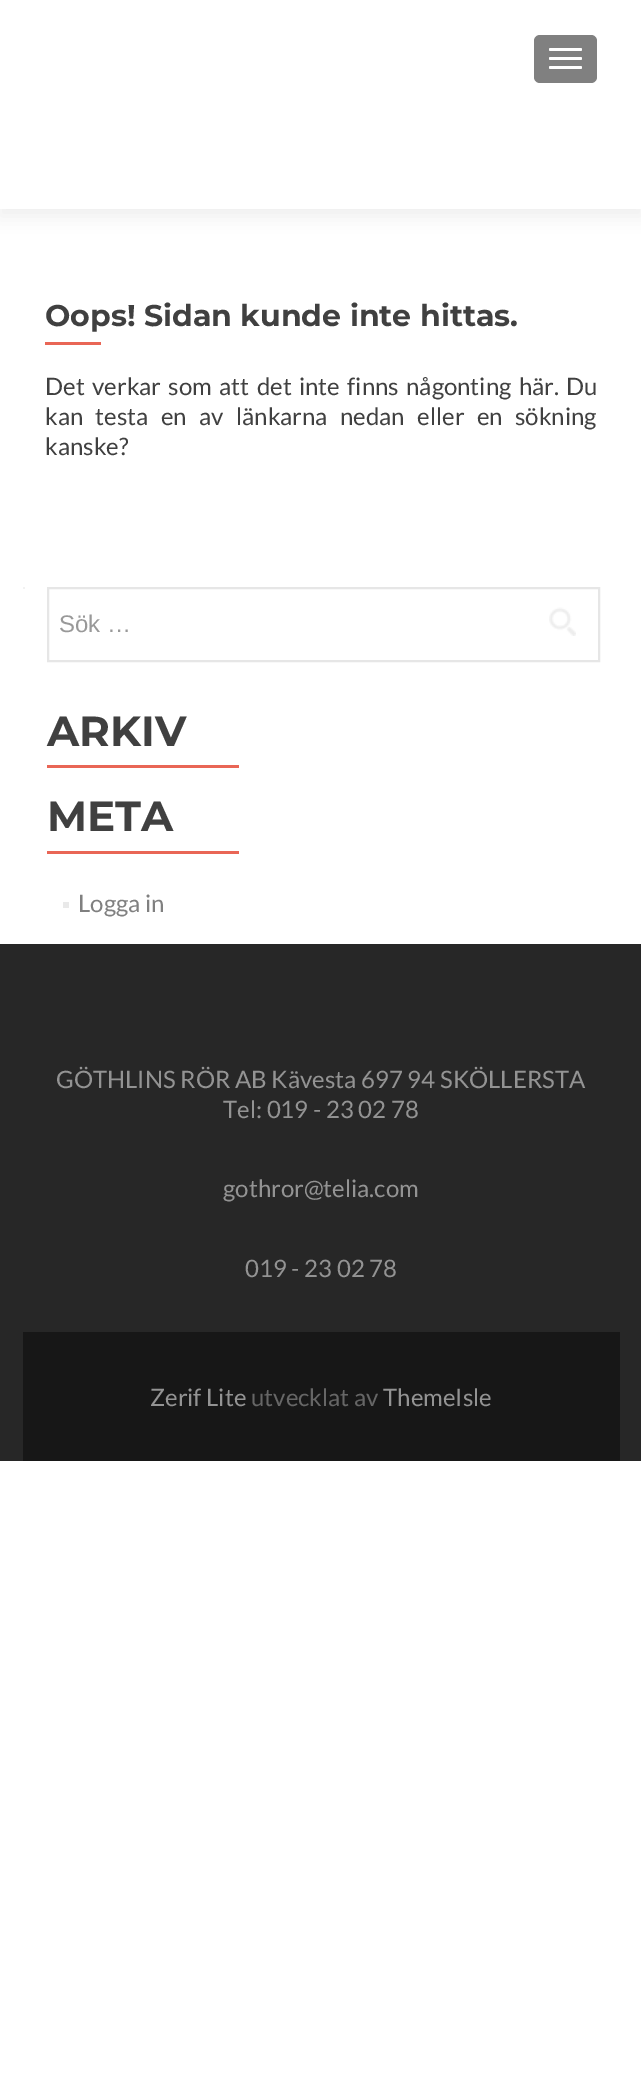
%!PS
<< /PageSize [641 2088] /PageUsesTransparency true >> setpagedevice
/rgb { 3 { 255 div 3 1 roll } repeat setrgbcolor } def
/font { [ exch dup neg 0 0 3 -1 roll 0 0 ] selectfont } def
/alpha { dup .setfillconstantalpha .setstrokeconstantalpha } def
/roundrect { 5 dict begin { /r /h /w /y /x } { exch def } forall
  x r add y moveto x w add y 2 copy h add r arct x w add y h add x 1 index r arct
  x y h add x y r arct x y 2 copy exch w add exch r arct closepath end } def
/shadow { 12 dict begin { /a /b /q /h /w /y /x } { exch def } forall gsave /was 0 def
  9 -2 -9 { dup b mul 4 div /e exch def 1 sub .425 mul 2.718 exch exp 1 add a .99 .min exch div /now exch def
    1 1 now sub 1 was sub div sub alpha /was now def
    w h .min e 2 mul add 0 gt { x e sub y e sub w e 2 mul add h e 2 mul add
      q e add b .6 mul add w h .min 2 div e add .min 0 .max roundrect fill } if } for grestore end } def
/picture { 5 dict begin { /h /w /y /x /name } { exch def } forall
  gsave x y translate w h scale
  w h 8 [w 0 0 h 0 0] name (r) file false 3 colorimage grestore end } def
0 .pushpdf14devicefilter
0 2088 translate 1 -1 scale
4 setmiterlimit
255 255 255 rgb
0 0 641 2088 rectfill
50 50 50 rgb
0 8 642 208 0 8 0.08 shadow
255 255 255 rgb
0 0 641 209 rectfill
128 128 128 rgb
534 35 63 48 6 roundrect fill
255 255 255 rgb
549 48 33 3 1.5 roundrect fill
549 57 33 3 1.5 roundrect fill
549 66 33 3 1.5 roundrect fill
233 102 86 rgb
45 342 56 3 rectfill
242 242 242 rgb
23 587 2 2 rectfill
230 230 230 rgb
2 setlinewidth
48 588 551 73 rectstroke
(img/1.rgb) 549 607 27 29 picture
[
  [47 765 192 3 233 102 86]
  [47 851 192 3 233 102 86]
  [63 902 6 6 233 233 233]
  [0 944 641 517 39 39 39]
  [23 1332 597 129 23 23 23]
] { aload pop rgb rectfill } forall
/Montserrat-Bold 30 font
64 64 64 rgb
45 326 moveto (Oops! Sidan kunde inte hittas.) show
/Lato-Regular 24 font
45 395 moveto 2.75 0 32 (Det verkar som att det inte finns någonting här. Du) widthshow
45 425 moveto 7.75 0 32 (kan testa en av länkarna nedan eller en sökning) widthshow
45 455 moveto (kanske?) show
/LiberationSans-Regular 24 font
153 153 153 rgb
59 632 moveto (Sök …) show
/Montserrat-Bold 42 font
64 64 64 rgb
47 746 moveto (ARKIV) show
47 831 moveto (META) show
/Lato-Regular 24 font
128 128 128 rgb
78 912 moveto (Logga in) show
147 147 147 rgb
[
  [(GÖTHLINS RÖR AB Kävesta 697 94 SKÖLLERSTA) 56 1088]
  [(Tel: 019 - 23 02 78) 223 1118]
  [(gothror@telia.com) 223 1197]
  [(019 - 23 02 78) 245 1277]
  [(Zerif Lite) 150 1406]
] { aload pop moveto show } forall
102 102 102 rgb
251 1406 moveto (utvecklat av) show
147 147 147 rgb
383 1406 moveto (ThemeIsle) show
.poppdf14devicefilter showpage
